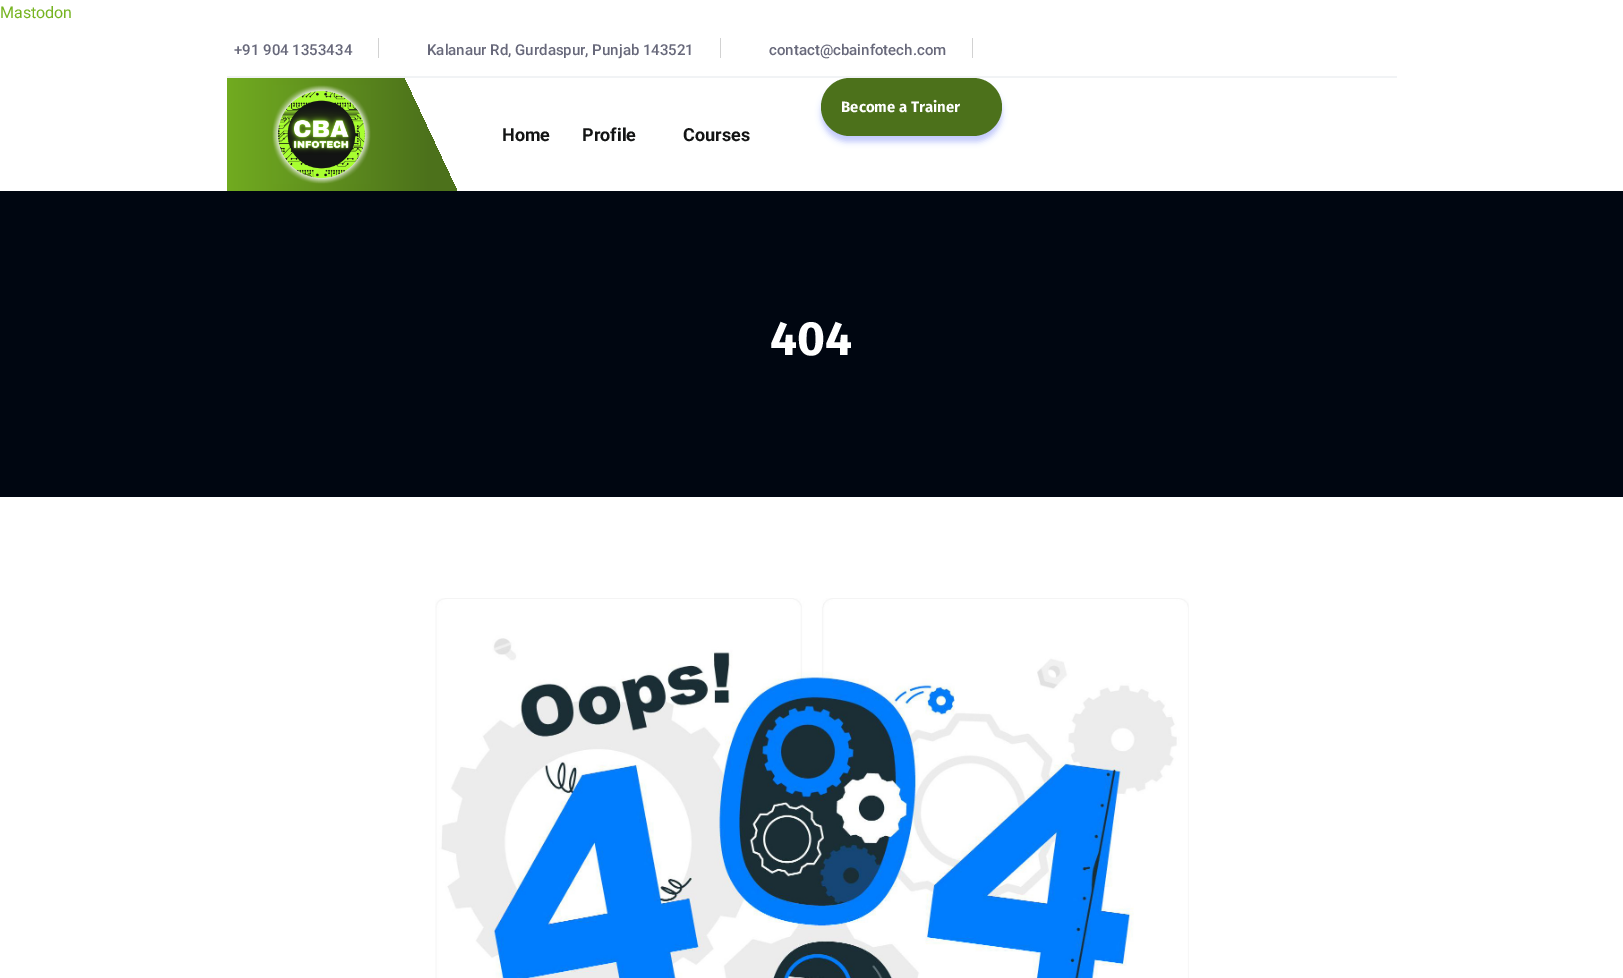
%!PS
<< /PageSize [1623 978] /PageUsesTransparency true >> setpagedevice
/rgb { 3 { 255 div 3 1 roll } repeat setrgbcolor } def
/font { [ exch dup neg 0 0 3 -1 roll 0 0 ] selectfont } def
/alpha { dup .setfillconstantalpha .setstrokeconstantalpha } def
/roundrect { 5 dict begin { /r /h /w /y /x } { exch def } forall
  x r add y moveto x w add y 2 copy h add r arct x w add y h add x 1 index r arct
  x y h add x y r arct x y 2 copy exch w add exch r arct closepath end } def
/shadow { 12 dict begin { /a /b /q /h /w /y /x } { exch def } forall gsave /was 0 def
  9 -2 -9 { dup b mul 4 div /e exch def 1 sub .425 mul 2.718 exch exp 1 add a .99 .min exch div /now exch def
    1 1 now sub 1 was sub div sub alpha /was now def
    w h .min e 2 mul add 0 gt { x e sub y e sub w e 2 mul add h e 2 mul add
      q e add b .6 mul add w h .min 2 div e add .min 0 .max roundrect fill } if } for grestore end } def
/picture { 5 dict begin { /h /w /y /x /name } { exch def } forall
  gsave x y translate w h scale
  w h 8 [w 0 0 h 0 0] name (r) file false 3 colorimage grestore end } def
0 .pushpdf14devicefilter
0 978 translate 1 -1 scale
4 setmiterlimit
255 255 255 rgb
0 0 1623 978 rectfill
[
  [378 38 1 20 210 210 210]
  [720 38 1 20 210 210 210]
  [972 38 1 20 210 210 210]
  [227 76 1170 2 241 243 245]
] { aload pop rgb rectfill } forall
gsave
227 78 234 113 rectclip
gsave 170 78 moveto 404 78 lineto 457 191 lineto 223 191 lineto closepath clip newpath
<< /ShadingType 2 /ColorSpace /DeviceRGB /Coords [197 135 431 135] /Extend [true true] /Function << /FunctionType 2 /Domain [0 1] /C0 [0.463 0.706 0.129] /C1 [0.298 0.443 0.106] /N 1 >> >> shfill grestore
grestore
(img/1.rgb) 272 85 99 99 picture
55 80 244 rgb
821 84 181 58 29 3 0.3 shadow
76 113 27 rgb
821 78 181 58 29 roundrect fill
0 6 17 rgb
0 191 1623 306 rectfill
(img/2.rgb) 435 598 754 380 picture
/Roboto-Regular 16 font
118 180 33 rgb
0 18 moveto (Mastodon) show
/Roboto-Medium 15 font
103 104 122 rgb
[
  [(+91 904 1353434) 234 55]
  [(Kalanaur Rd, Gurdaspur, Punjab 143521) 427 55]
  [(contact@cbainfotech.com) 769 55]
] { aload pop moveto show } forall
/FiraSans-Bold 15 font
255 255 255 rgb
841 112 moveto (Become a Trainer) show
/Roboto-Bold 18 font
19 20 20 rgb
[
  [(Home) 502 141]
  [(Profile) 582 141]
  [(Courses) 683 141]
] { aload pop moveto show } forall
/FiraSans-Bold 48 font
255 255 255 rgb
770 355 moveto (404) show
.poppdf14devicefilter showpage
